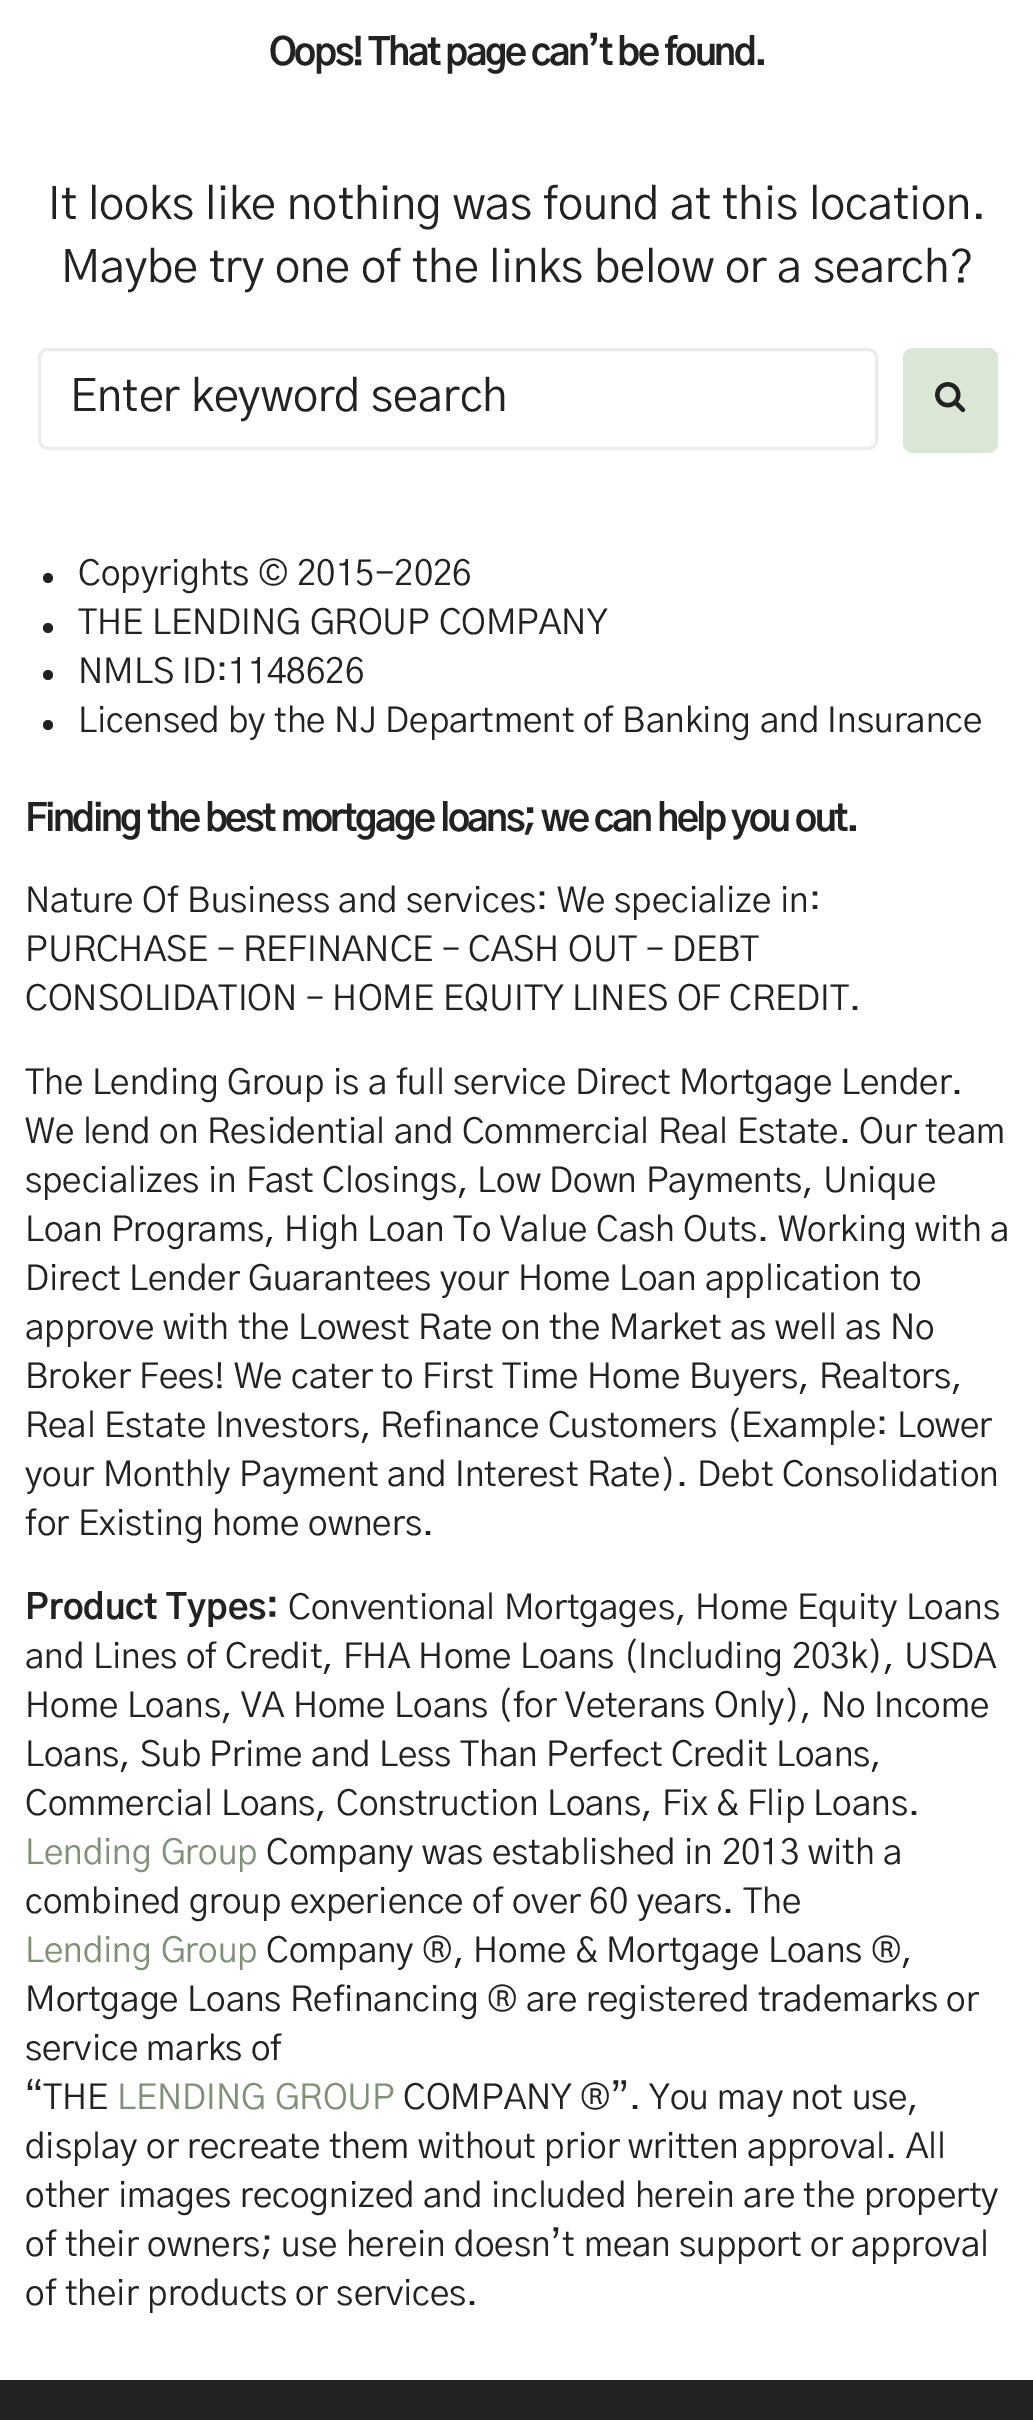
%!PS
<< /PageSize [1033 2420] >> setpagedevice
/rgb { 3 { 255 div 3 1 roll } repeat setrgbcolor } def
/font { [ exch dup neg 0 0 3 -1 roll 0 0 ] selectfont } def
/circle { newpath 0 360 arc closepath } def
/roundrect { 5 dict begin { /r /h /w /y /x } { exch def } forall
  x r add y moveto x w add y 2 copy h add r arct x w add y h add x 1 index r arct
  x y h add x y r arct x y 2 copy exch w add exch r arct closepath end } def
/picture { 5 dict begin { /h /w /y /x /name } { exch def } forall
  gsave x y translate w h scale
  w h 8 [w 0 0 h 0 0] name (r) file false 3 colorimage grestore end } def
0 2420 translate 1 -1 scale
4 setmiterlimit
255 255 255 rgb
0 0 1033 2420 rectfill
235 236 237 rgb
3 setlinewidth
39.5 349.5 837 99 8.5 roundrect stroke
219 230 215 rgb
903 348 95 105 10 roundrect fill
(img/1.rgb) 935 382 31 31 picture
34 34 34 rgb
48 578 5 circle fill
48 628 5 circle fill
48 675 5 circle fill
48 725 5 circle fill
0 2380 1033 40 rectfill
/GothicA1-Bold 37.5 font
269 65 moveto -2.5 0 (Oops! That page can’t be found.) ashow
/GothicA1-Regular 45 font
[
  [(It looks like nothing was found at this location.) 48 219]
  [(Maybe try one of the links below or a search?) 61 282]
  [(Enter keyword search) 70 411]
] { aload pop moveto show } forall
/GothicA1-Regular 35 font
[
  [(Copyrights © 2015-2026) 78 585]
  [(THE LENDING GROUP COMPANY) 78 634]
  [(NMLS ID:1148626) 78 683]
  [(Licensed by the NJ Department of Banking and Insurance) 78 732]
] { aload pop moveto show } forall
/GothicA1-Bold 37.5 font
25 831 moveto -2.5 0 (Finding the best mortgage loans; we can help you out.) ashow
/GothicA1-Regular 35 font
[
  [(Nature Of Business and services: We specialize in:) 25 912]
  [(PURCHASE – REFINANCE – CASH OUT – DEBT) 25 961]
  [(CONSOLIDATION – HOME EQUITY LINES OF CREDIT.) 25 1010]
  [(The Lending Group is a full service Direct Mortgage Lender.) 25 1094]
  [(We lend on Residential and Commercial Real Estate. Our team) 25 1143]
  [(specializes in Fast Closings, Low Down Payments, Unique) 25 1192]
  [(Loan Programs, High Loan To Value Cash Outs. Working with a) 25 1241]
  [(Direct Lender Guarantees your Home Loan application to) 25 1290]
  [(approve with the Lowest Rate on the Market as well as No) 25 1339]
  [(Broker Fees! We cater to First Time Home Buyers, Realtors,) 25 1388]
  [(Real Estate Investors, Refinance Customers \(Example: Lower) 25 1437]
  [(your Monthly Payment and Interest Rate\). Debt Consolidation) 25 1486]
  [(for Existing home owners.) 25 1535]
] { aload pop moveto show } forall
/GothicA1-Bold 35 font
25 1619 moveto (Product Types:) show
/GothicA1-Regular 35 font
[
  [(Conventional Mortgages, Home Equity Loans) 288 1619]
  [(and Lines of Credit, FHA Home Loans \(Including 203k\), USDA) 25 1668]
  [(Home Loans, VA Home Loans \(for Veterans Only\), No Income) 25 1717]
  [(Loans, Sub Prime and Less Than Perfect Credit Loans,) 25 1766]
  [(Commercial Loans, Construction Loans, Fix & Flip Loans.) 25 1815]
] { aload pop moveto show } forall
126 145 118 rgb
25 1864 moveto (Lending Group) show
34 34 34 rgb
266 1864 moveto (Company was established in 2013 with a) show
25 1913 moveto (combined group experience of over 60 years. The) show
126 145 118 rgb
25 1962 moveto (Lending Group) show
34 34 34 rgb
[
  [(Company ®, Home & Mortgage Loans ®,) 266 1962]
  [(Mortgage Loans Refinancing ® are registered trademarks or) 25 2011]
  [(service marks of) 25 2060]
  [(“THE) 25 2109]
] { aload pop moveto show } forall
126 145 118 rgb
117 2109 moveto (LENDING GROUP) show
34 34 34 rgb
[
  [(COMPANY ®”. You may not use,) 403 2109]
  [(display or recreate them without prior written approval. All) 25 2158]
  [(other images recognized and included herein are the property) 25 2207]
  [(of their owners; use herein doesn’t mean support or approval) 25 2256]
  [(of their products or services.) 25 2305]
] { aload pop moveto show } forall
showpage
